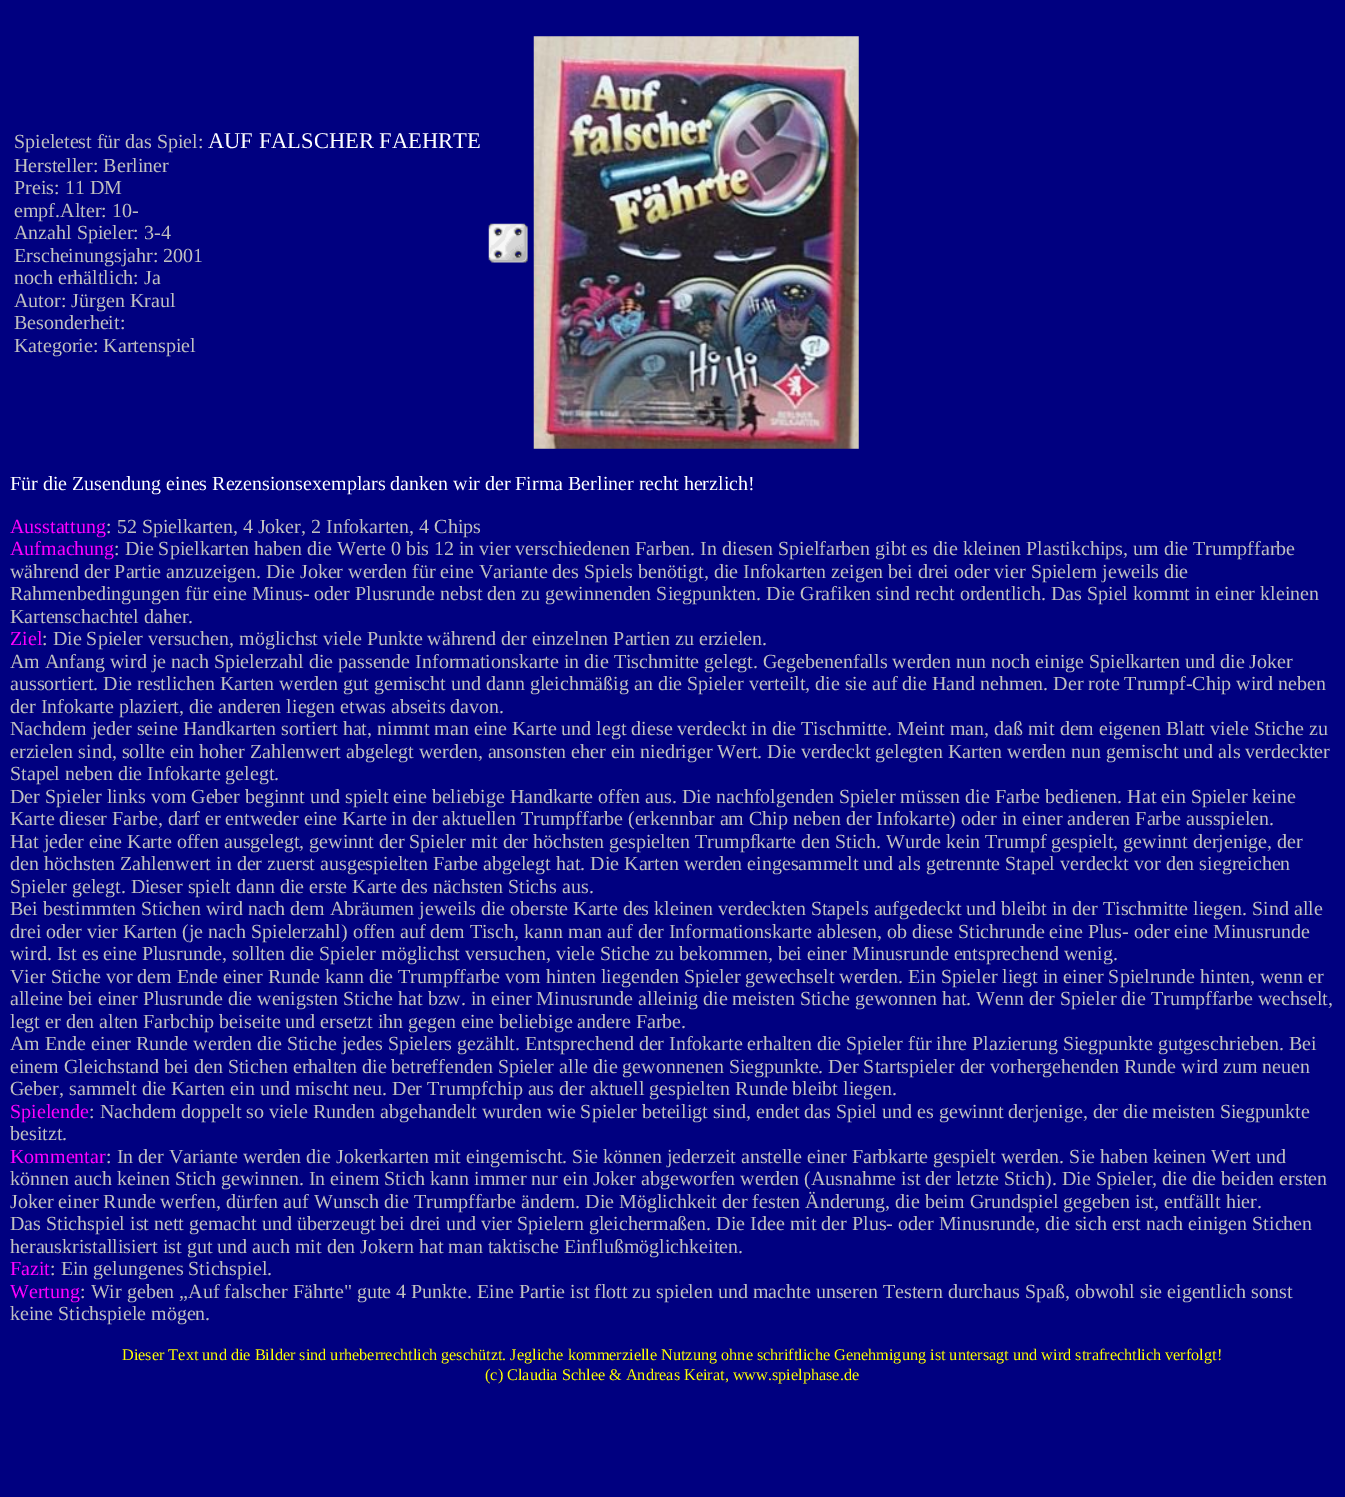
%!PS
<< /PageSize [1345 1497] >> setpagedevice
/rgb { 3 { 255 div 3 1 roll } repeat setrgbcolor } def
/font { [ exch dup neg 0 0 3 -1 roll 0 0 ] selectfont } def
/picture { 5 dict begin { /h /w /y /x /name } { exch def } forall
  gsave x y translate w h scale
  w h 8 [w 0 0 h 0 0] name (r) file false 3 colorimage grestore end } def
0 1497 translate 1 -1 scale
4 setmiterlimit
0 0 128 rgb
0 0 1345 1497 rectfill
(img/1.rgb) 488 223 40 40 picture
(img/2.rgb) 533 36 326 413 picture
/LiberationSerif-Regular 20 font
192 192 192 rgb
14 148 moveto (Spieletest für das Spiel:) show
/LiberationSerif-Regular 22.5 font
255 255 255 rgb
208 148 moveto (AUF FALSCHER FAEHRTE) show
/LiberationSerif-Regular 20 font
192 192 192 rgb
[
  [(Hersteller: Berliner) 14 172]
  [(Preis: 11 DM) 14 194]
  [(empf.Alter: 10-) 14 217]
  [(Anzahl Spieler: 3-4) 14 239]
  [(Erscheinungsjahr: 2001) 14 262]
  [(noch erhältlich: Ja) 14 284]
  [(Autor: Jürgen Kraul) 14 307]
  [(Besonderheit:) 14 329]
  [(Kategorie: Kartenspiel) 14 352]
] { aload pop moveto show } forall
255 255 255 rgb
10 490 moveto (Für die Zusendung eines Rezensionsexemplars danken wir der Firma Berliner recht herzlich!) show
255 0 255 rgb
10 533 moveto (Ausstattung) show
192 192 192 rgb
106 533 moveto (: 52 Spielkarten, 4 Joker, 2 Infokarten, 4 Chips) show
255 0 255 rgb
10 555 moveto (Aufmachung) show
192 192 192 rgb
[
  [(: Die Spielkarten haben die Werte 0 bis 12 in vier verschiedenen Farben. In diesen Spielfarben gibt es die kleinen Plastikchips, um die Trumpffarbe) 114 555]
  [(während der Partie anzuzeigen. Die Joker werden für eine Variante des Spiels benötigt, die Infokarten zeigen bei drei oder vier Spielern jeweils die) 10 578]
  [(Rahmenbedingungen für eine Minus- oder Plusrunde nebst den zu gewinnenden Siegpunkten. Die Grafiken sind recht ordentlich. Das Spiel kommt in einer kleinen) 10 600]
  [(Kartenschachtel daher.) 10 623]
] { aload pop moveto show } forall
255 0 255 rgb
10 645 moveto (Ziel) show
192 192 192 rgb
[
  [(: Die Spieler versuchen, möglichst viele Punkte während der einzelnen Partien zu erzielen.) 42 645]
  [(Am Anfang wird je nach Spielerzahl die passende Informationskarte in die Tischmitte gelegt. Gegebenenfalls werden nun noch einige Spielkarten und die Joker) 10 668]
  [(aussortiert. Die restlichen Karten werden gut gemischt und dann gleichmäßig an die Spieler verteilt, die sie auf die Hand nehmen. Der rote Trumpf-Chip wird neben) 10 690]
  [(der Infokarte plaziert, die anderen liegen etwas abseits davon.) 10 713]
  [(Nachdem jeder seine Handkarten sortiert hat, nimmt man eine Karte und legt diese verdeckt in die Tischmitte. Meint man, daß mit dem eigenen Blatt viele Stiche zu) 10 735]
  [(erzielen sind, sollte ein hoher Zahlenwert abgelegt werden, ansonsten eher ein niedriger Wert. Die verdeckt gelegten Karten werden nun gemischt und als verdeckter) 10 758]
  [(Stapel neben die Infokarte gelegt.) 10 780]
  [(Der Spieler links vom Geber beginnt und spielt eine beliebige Handkarte offen aus. Die nachfolgenden Spieler müssen die Farbe bedienen. Hat ein Spieler keine) 10 803]
  [(Karte dieser Farbe, darf er entweder eine Karte in der aktuellen Trumpffarbe \(erkennbar am Chip neben der Infokarte\) oder in einer anderen Farbe ausspielen.) 10 825]
  [(Hat jeder eine Karte offen ausgelegt, gewinnt der Spieler mit der höchsten gespielten Trumpfkarte den Stich. Wurde kein Trumpf gespielt, gewinnt derjenige, der) 10 848]
  [(den höchsten Zahlenwert in der zuerst ausgespielten Farbe abgelegt hat. Die Karten werden eingesammelt und als getrennte Stapel verdeckt vor den siegreichen) 10 870]
  [(Spieler gelegt. Dieser spielt dann die erste Karte des nächsten Stichs aus.) 10 893]
  [(Bei bestimmten Stichen wird nach dem Abräumen jeweils die oberste Karte des kleinen verdeckten Stapels aufgedeckt und bleibt in der Tischmitte liegen. Sind alle) 10 915]
  [(drei oder vier Karten \(je nach Spielerzahl\) offen auf dem Tisch, kann man auf der Informationskarte ablesen, ob diese Stichrunde eine Plus- oder eine Minusrunde) 10 938]
  [(wird. Ist es eine Plusrunde, sollten die Spieler möglichst versuchen, viele Stiche zu bekommen, bei einer Minusrunde entsprechend wenig.) 10 960]
  [(Vier Stiche vor dem Ende einer Runde kann die Trumpffarbe vom hinten liegenden Spieler gewechselt werden. Ein Spieler liegt in einer Spielrunde hinten, wenn er) 10 983]
  [(alleine bei einer Plusrunde die wenigsten Stiche hat bzw. in einer Minusrunde alleinig die meisten Stiche gewonnen hat. Wenn der Spieler die Trumpffarbe wechselt,) 10 1005]
  [(legt er den alten Farbchip beiseite und ersetzt ihn gegen eine beliebige andere Farbe.) 10 1028]
  [(Am Ende einer Runde werden die Stiche jedes Spielers gezählt. Entsprechend der Infokarte erhalten die Spieler für ihre Plazierung Siegpunkte gutgeschrieben. Bei) 10 1050]
  [(einem Gleichstand bei den Stichen erhalten die betreffenden Spieler alle die gewonnenen Siegpunkte. Der Startspieler der vorhergehenden Runde wird zum neuen) 10 1073]
  [(Geber, sammelt die Karten ein und mischt neu. Der Trumpfchip aus der aktuell gespielten Runde bleibt liegen.) 10 1095]
] { aload pop moveto show } forall
255 0 255 rgb
10 1118 moveto (Spielende) show
192 192 192 rgb
89 1118 moveto (: Nachdem doppelt so viele Runden abgehandelt wurden wie Spieler beteiligt sind, endet das Spiel und es gewinnt derjenige, der die meisten Siegpunkte) show
10 1140 moveto (besitzt.) show
255 0 255 rgb
10 1163 moveto (Kommentar) show
192 192 192 rgb
[
  [(: In der Variante werden die Jokerkarten mit eingemischt. Sie können jederzeit anstelle einer Farbkarte gespielt werden. Sie haben keinen Wert und) 106 1163]
  [(können auch keinen Stich gewinnen. In einem Stich kann immer nur ein Joker abgeworfen werden \(Ausnahme ist der letzte Stich\). Die Spieler, die die beiden ersten) 10 1185]
  [(Joker einer Runde werfen, dürfen auf Wunsch die Trumpffarbe ändern. Die Möglichkeit der festen Änderung, die beim Grundspiel gegeben ist, entfällt hier.) 10 1208]
  [(Das Stichspiel ist nett gemacht und überzeugt bei drei und vier Spielern gleichermaßen. Die Idee mit der Plus- oder Minusrunde, die sich erst nach einigen Stichen) 10 1230]
  [(herauskristallisiert ist gut und auch mit den Jokern hat man taktische Einflußmöglichkeiten.) 10 1253]
] { aload pop moveto show } forall
255 0 255 rgb
10 1275 moveto (Fazit) show
192 192 192 rgb
50 1275 moveto (: Ein gelungenes Stichspiel.) show
255 0 255 rgb
10 1298 moveto (Wertung) show
192 192 192 rgb
80 1298 moveto (: Wir geben „Auf falscher Fährte" gute 4 Punkte. Eine Partie ist flott zu spielen und machte unseren Testern durchaus Spaß, obwohl sie eigentlich sonst) show
10 1320 moveto (keine Stichspiele mögen.) show
/LiberationSerif-Regular 16.25 font
255 255 0 rgb
122 1360 moveto (Dieser Text und die Bilder sind urheberrechtlich geschützt. Jegliche kommerzielle Nutzung ohne schriftliche Genehmigung ist untersagt und wird strafrechtlich verfolgt!) show
485 1380 moveto (\(c\) Claudia Schlee & Andreas Keirat, www.spielphase.de) show
showpage
